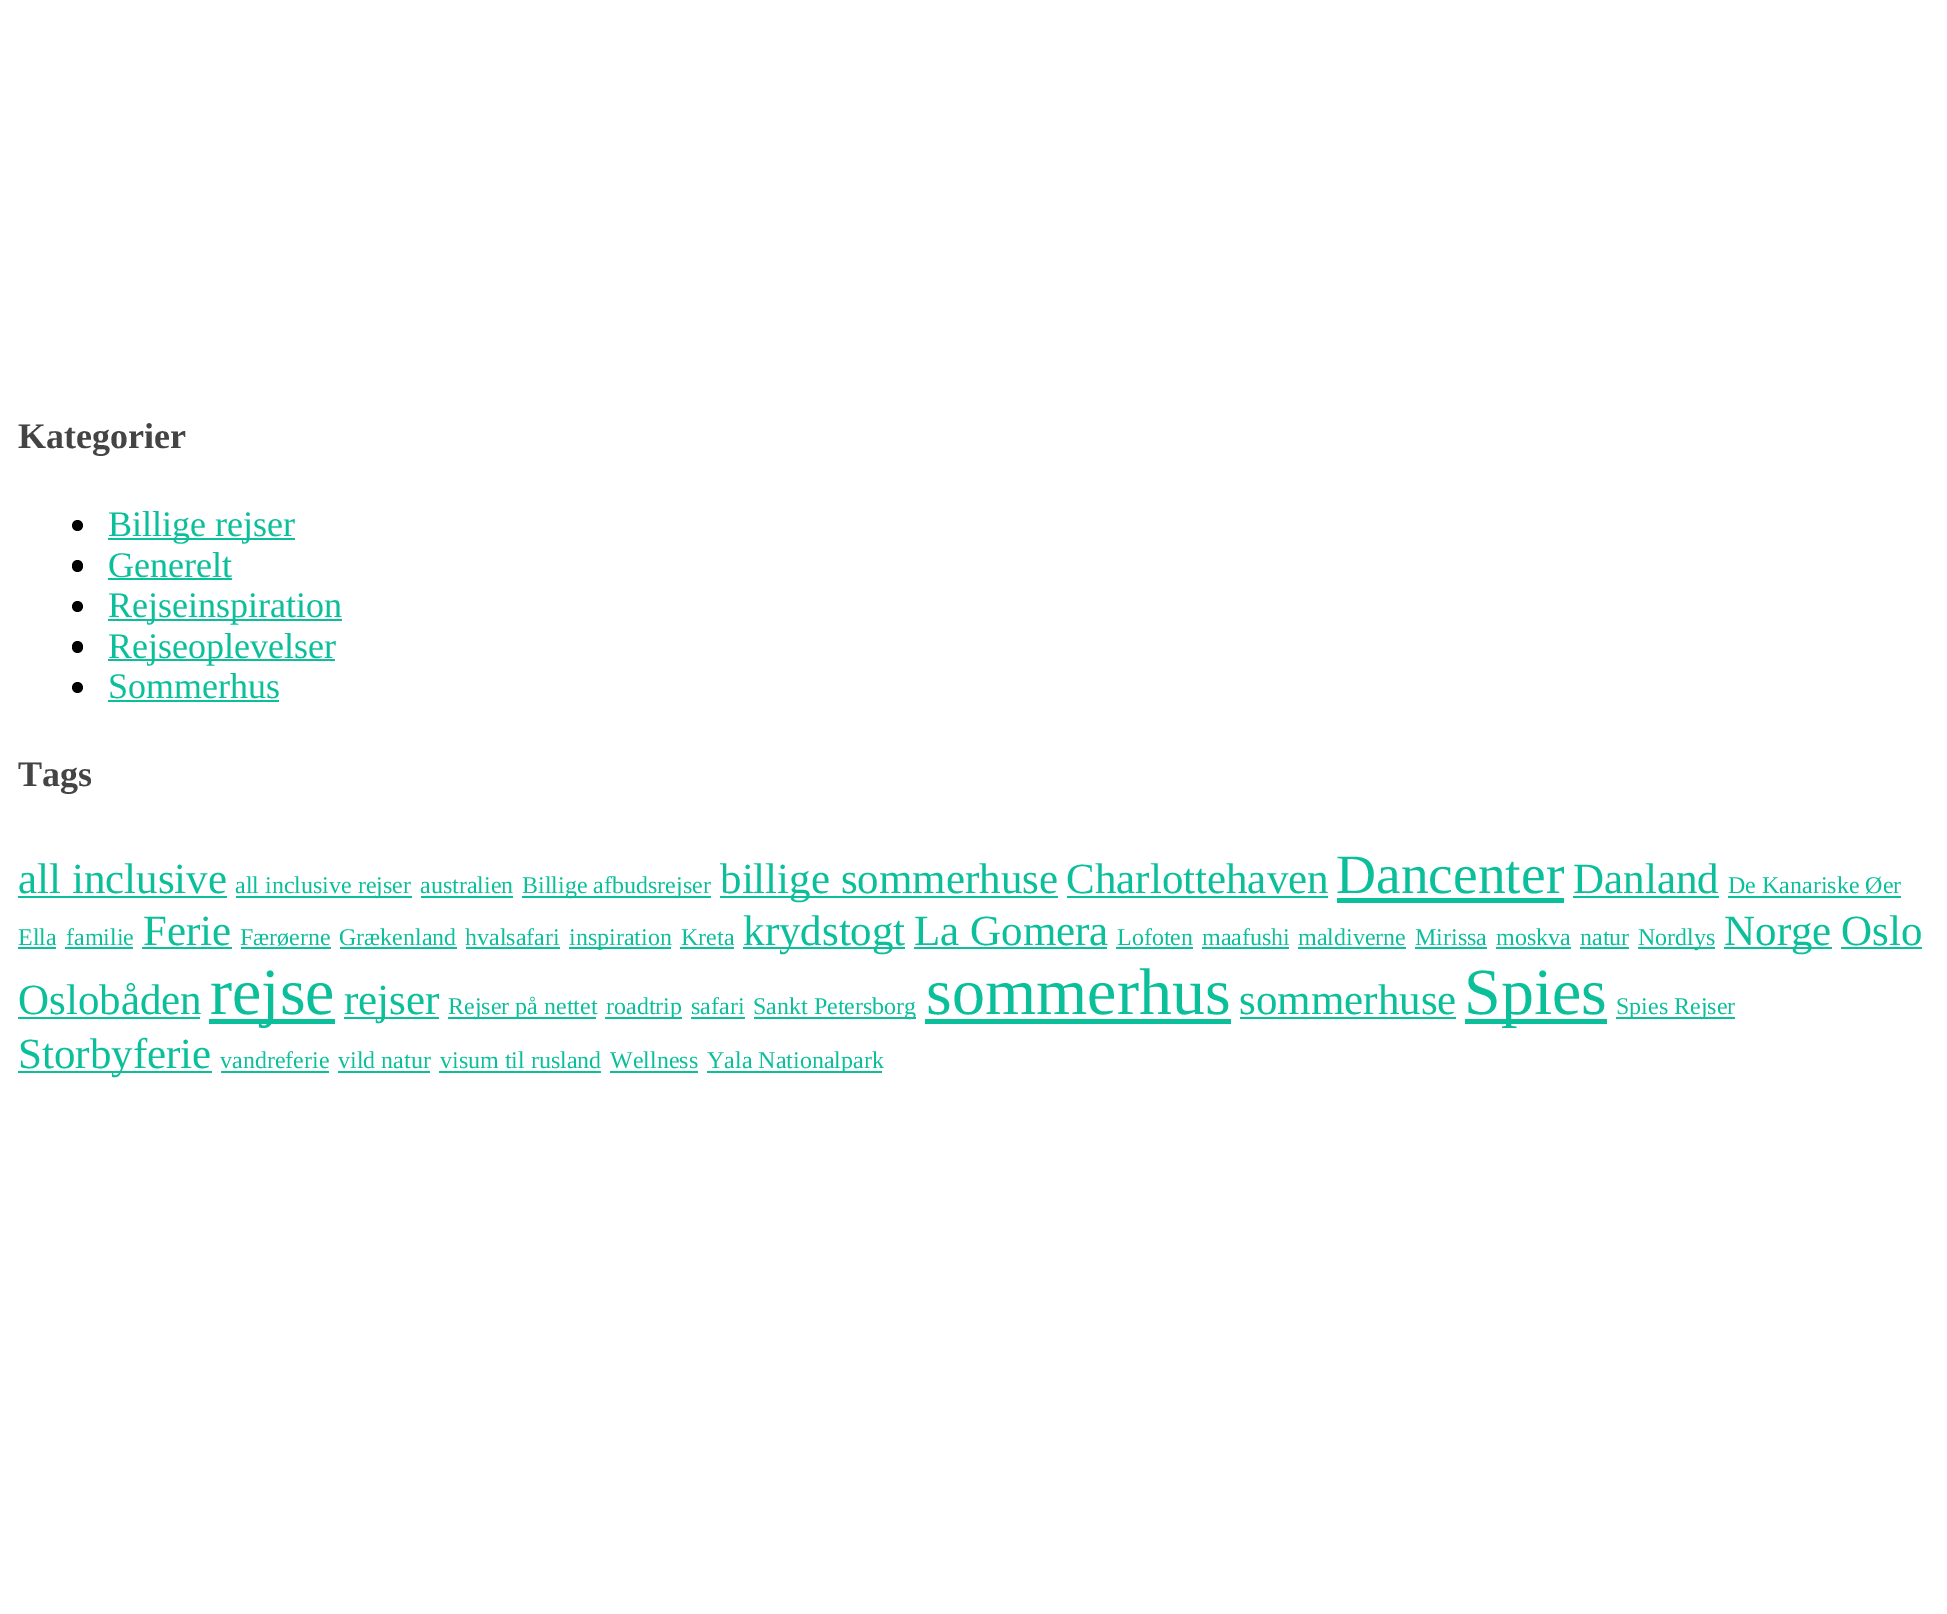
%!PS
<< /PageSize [1947 1614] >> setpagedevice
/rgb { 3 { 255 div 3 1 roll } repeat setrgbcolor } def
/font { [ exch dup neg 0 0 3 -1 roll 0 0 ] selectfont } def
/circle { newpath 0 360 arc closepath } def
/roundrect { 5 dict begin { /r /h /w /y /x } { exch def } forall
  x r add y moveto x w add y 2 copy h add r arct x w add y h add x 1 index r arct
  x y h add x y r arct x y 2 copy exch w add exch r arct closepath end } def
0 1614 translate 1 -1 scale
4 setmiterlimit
255 255 255 rgb
0 0 1947 1614 rectfill
0 0 0 rgb
77.5 525.5 5.5 circle fill
11 191 155 rgb
108 538 187 2 rectfill
0 0 0 rgb
72 560 11 12 5.5 roundrect fill
11 191 155 rgb
108 578 124 2 rectfill
0 0 0 rgb
77.5 606.5 5.5 circle fill
11 191 155 rgb
108 619 234 2 rectfill
0 0 0 rgb
72 641 11 12 5.5 roundrect fill
11 191 155 rgb
108 659 227 2 rectfill
0 0 0 rgb
77.5 687.5 5.5 circle fill
[
  [108 700 171 2 11 191 155]
  [18 896 209 2 11 191 155]
  [236 896 176 2 11 191 155]
  [421 896 92 2 11 191 155]
  [522 896 189 2 11 191 155]
  [720 896 338 2 11 191 155]
  [1067 896 261 2 11 191 155]
  [1337 898 227 5 11 191 155]
  [1573 896 146 2 11 191 155]
  [1728 896 173 2 11 191 155]
  [18 947 38 2 11 191 155]
  [65 947 68 2 11 191 155]
  [142 947 90 2 11 191 155]
  [241 947 90 2 11 191 155]
  [340 947 117 2 11 191 155]
  [466 947 94 2 11 191 155]
  [569 947 102 2 11 191 155]
  [680 947 54 2 11 191 155]
  [743 947 162 2 11 191 155]
  [914 947 193 2 11 191 155]
  [1116 947 77 2 11 191 155]
  [1202 947 87 2 11 191 155]
  [1298 947 108 2 11 191 155]
  [1415 947 72 2 11 191 155]
  [1496 947 75 2 11 191 155]
  [1580 947 49 2 11 191 155]
  [1638 947 77 2 11 191 155]
  [1724 947 108 2 11 191 155]
  [1841 947 81 2 11 191 155]
  [18 1017 182 2 11 191 155]
  [209 1019 126 5 11 191 155]
  [344 1017 95 2 11 191 155]
  [448 1017 148 2 11 191 155]
  [605 1017 77 2 11 191 155]
  [691 1017 54 2 11 191 155]
  [754 1017 162 2 11 191 155]
  [925 1019 306 5 11 191 155]
  [1240 1017 216 2 11 191 155]
  [1465 1019 142 5 11 191 155]
  [1616 1017 119 2 11 191 155]
  [18 1071 194 2 11 191 155]
  [221 1071 108 2 11 191 155]
  [338 1071 92 2 11 191 155]
  [439 1071 162 2 11 191 155]
  [610 1071 88 2 11 191 155]
  [707 1071 175 2 11 191 155]
] { aload pop rgb rectfill } forall
/LiberationSerif-Bold 36 font
68 68 68 rgb
18 448 moveto (Kategorier) show
/LiberationSerif-Regular 36 font
11 191 155 rgb
[
  [(Billige rejser) 108 536]
  [(Generelt) 108 577]
  [(Rejseinspiration) 108 617]
  [(Rejseoplevelser) 108 658]
  [(Sommerhus) 108 698]
] { aload pop moveto show } forall
/LiberationSerif-Bold 36 font
68 68 68 rgb
18 786 moveto (Tags) show
/LiberationSerif-Regular 43 font
11 191 155 rgb
18 893 moveto (all inclusive) show
/LiberationSerif-Regular 24 font
[
  [(all inclusive rejser) 235 893]
  [(australien) 420 893]
  [(Billige afbudsrejser) 522 893]
] { aload pop moveto show } forall
/LiberationSerif-Regular 43 font
720 893 moveto (billige sommerhuse) show
1066 893 moveto (Charlottehaven) show
/LiberationSerif-Regular 55.5 font
1336 893 moveto (Dancenter) show
/LiberationSerif-Regular 43 font
1573 893 moveto (Danland) show
/LiberationSerif-Regular 24 font
[
  [(De Kanariske Øer) 1728 893]
  [(Ella) 18 945]
  [(familie) 66 945]
] { aload pop moveto show } forall
/LiberationSerif-Regular 43 font
143 945 moveto (Ferie) show
/LiberationSerif-Regular 24 font
[
  [(Færøerne) 240 945]
  [(Grækenland) 339 945]
  [(hvalsafari) 465 945]
  [(inspiration) 569 945]
  [(Kreta) 681 945]
] { aload pop moveto show } forall
/LiberationSerif-Regular 43 font
743 945 moveto (krydstogt) show
914 945 moveto (La Gomera) show
/LiberationSerif-Regular 24 font
[
  [(Lofoten) 1117 945]
  [(maafushi) 1202 945]
  [(maldiverne) 1298 945]
  [(Mirissa) 1415 945]
  [(moskva) 1496 945]
  [(natur) 1580 945]
  [(Nordlys) 1638 945]
] { aload pop moveto show } forall
/LiberationSerif-Regular 43 font
[
  [(Norge) 1724 945]
  [(Oslo) 1841 945]
  [(Oslobåden) 18 1014]
] { aload pop moveto show } forall
/LiberationSerif-Regular 66 font
210 1014 moveto (rejse) show
/LiberationSerif-Regular 43 font
344 1014 moveto (rejser) show
/LiberationSerif-Regular 24 font
[
  [(Rejser på nettet) 448 1014]
  [(roadtrip) 606 1014]
  [(safari) 691 1014]
  [(Sankt Petersborg) 753 1014]
] { aload pop moveto show } forall
/LiberationSerif-Regular 66 font
926 1014 moveto (sommerhus) show
/LiberationSerif-Regular 43 font
1239 1014 moveto (sommerhuse) show
/LiberationSerif-Regular 66 font
1464 1014 moveto (Spies) show
/LiberationSerif-Regular 24 font
1616 1014 moveto (Spies Rejser) show
/LiberationSerif-Regular 43 font
18 1068 moveto (Storbyferie) show
/LiberationSerif-Regular 24 font
[
  [(vandreferie) 220 1068]
  [(vild natur) 338 1068]
  [(visum til rusland) 440 1068]
  [(Wellness) 610 1068]
  [(Yala Nationalpark) 707 1068]
] { aload pop moveto show } forall
showpage
